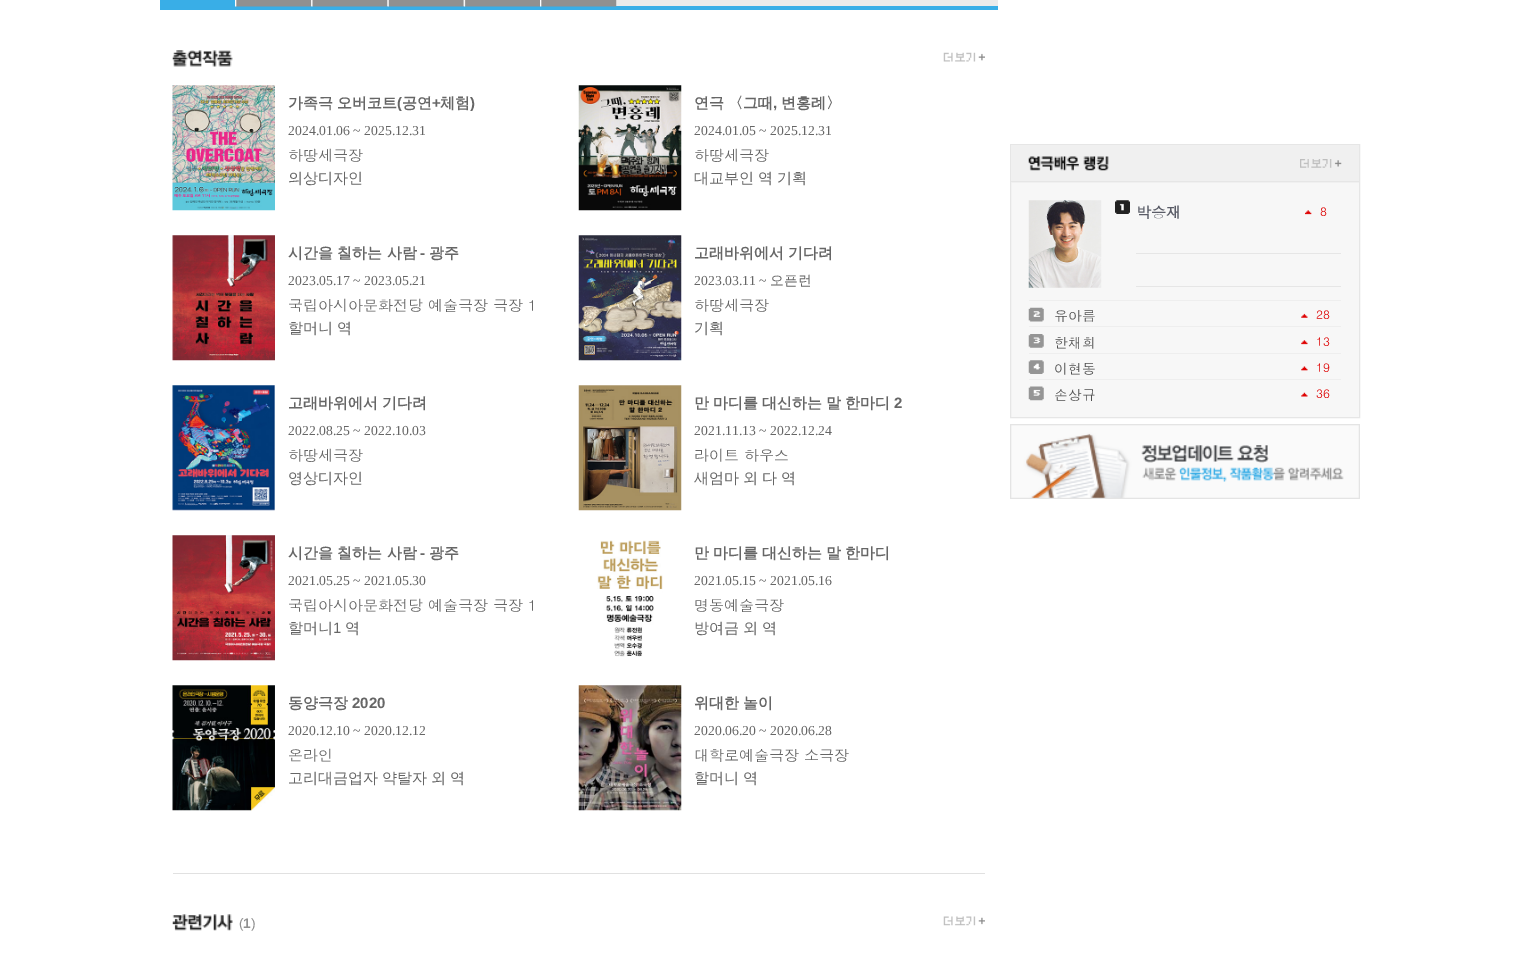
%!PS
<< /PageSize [1519 955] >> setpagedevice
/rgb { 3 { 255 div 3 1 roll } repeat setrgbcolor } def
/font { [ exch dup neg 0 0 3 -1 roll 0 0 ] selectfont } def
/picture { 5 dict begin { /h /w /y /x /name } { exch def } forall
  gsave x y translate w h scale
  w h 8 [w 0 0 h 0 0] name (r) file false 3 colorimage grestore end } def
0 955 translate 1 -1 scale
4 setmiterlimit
255 255 255 rgb
0 0 1519 955 rectfill
[
  [311 0 687 6 235 235 235]
  [160 6 838 4 57 174 231]
  [160 0 75 6 57 174 231]
] { aload pop rgb rectfill } forall
(img/1.rgb) 235 0 77 7 picture
(img/2.rgb) 311 0 77 7 picture
(img/3.rgb) 387 0 77 7 picture
(img/4.rgb) 463 0 77 7 picture
(img/1.rgb) 540 0 77 7 picture
225 225 225 rgb
173 873 812 1 rectfill
(img/5.rgb) 172 50 61 17 picture
(img/6.rgb) 943 52 42 10 picture
(img/7.rgb) 172 85 103 126 picture
(img/8.rgb) 578 85 104 126 picture
(img/9.rgb) 172 235 103 126 picture
(img/10.rgb) 578 235 104 126 picture
(img/11.rgb) 172 385 103 126 picture
(img/12.rgb) 578 385 104 126 picture
(img/13.rgb) 172 535 103 126 picture
(img/14.rgb) 597 540 66 117 picture
(img/15.rgb) 172 685 103 126 picture
(img/16.rgb) 578 685 104 126 picture
(img/17.rgb) 172 914 61 17 picture
(img/18.rgb) 943 916 42 10 picture
247 247 247 rgb
1011 183 348 234 rectfill
230 230 230 rgb
1010.5 144.5 349 273 rectstroke
240 240 240 rgb
1011 145 348 38 rectfill
230 230 230 rgb
1011 181 348 1 rectfill
(img/19.rgb) 1028 156 81 15 picture
(img/20.rgb) 1300 159 42 9 picture
(img/21.rgb) 1028 200 74 88 picture
(img/22.rgb) 1115 200 15 14 picture
(img/23.rgb) 1305 210 7 5 picture
[
  [1136 253 205 1 230 230 230]
  [1136 286 205 1 230 230 230]
  [1029 300 312 1 238 238 238]
] { aload pop rgb rectfill } forall
(img/24.rgb) 1028 307 16 15 picture
(img/25.rgb) 1301 313 7 5 picture
1029 326 312 1 rectfill
(img/26.rgb) 1028 334 16 14 picture
(img/27.rgb) 1301 340 7 5 picture
1029 353 312 1 rectfill
(img/28.rgb) 1028 360 16 14 picture
(img/29.rgb) 1301 366 7 5 picture
1029 379 312 1 rectfill
(img/30.rgb) 1028 386 16 15 picture
(img/31.rgb) 1301 392 7 5 picture
(img/32.rgb) 1010 424 350 75 picture
/WenQuanYiZenHei-Bold 15 font
102 102 102 rgb
288 108 moveto -0.5 0 32 (가족극 오버코트) widthshow
/LiberationSans-Bold 15 font
397 108 moveto (\() show
/WenQuanYiZenHei-Bold 15 font
402 108 moveto (공연) show
/LiberationSans-Bold 15 font
432 108 moveto (+) show
/WenQuanYiZenHei-Bold 15 font
440 108 moveto (체험) show
/LiberationSans-Bold 15 font
470 108 moveto (\)) show
/LiberationSerif-Regular 13.75 font
288 135 moveto (2024.01.06 ~ 2025.12.31) show
/Dotum-Regular 15 font
288 161 moveto (하땅세극장) show
/WenQuanYiZenHei-Medium 15 font
288 183 moveto (의상디자인) show
/WenQuanYiZenHei-Bold 15 font
694 108 moveto -0.5 0 32 (연극 〈그때) widthshow
/LiberationSans-Bold 15 font
773 108 moveto (,) show
/WenQuanYiZenHei-Bold 15 font
781 108 moveto (변홍례〉) show
/LiberationSerif-Regular 13.75 font
694 135 moveto (2024.01.05 ~ 2025.12.31) show
/Dotum-Regular 15 font
694 161 moveto (하땅세극장) show
/WenQuanYiZenHei-Medium 15 font
694 183 moveto -0.5 0 32 (대교부인 역 기획) widthshow
/WenQuanYiZenHei-Bold 15 font
288 258 moveto (시간을 칠하는 사람) show
/LiberationSans-Bold 15 font
420 258 moveto (-) show
/WenQuanYiZenHei-Bold 15 font
429 258 moveto (광주) show
/LiberationSerif-Regular 13.75 font
288 285 moveto (2023.05.17 ~ 2023.05.21) show
/Dotum-Regular 15 font
288 311 moveto (국립아시아문화전당 예술극장 극장 1) show
/WenQuanYiZenHei-Medium 15 font
288 333 moveto -0.5 0 32 (할머니 역) widthshow
/WenQuanYiZenHei-Bold 15 font
694 258 moveto -0.5 0 32 (고래바위에서 기다려) widthshow
/LiberationSerif-Regular 13.75 font
694 285 moveto (2023.03.11 ~) show
/WenQuanYiZenHei-Medium 13.75 font
770 285 moveto (오픈런) show
/Dotum-Regular 15 font
694 311 moveto (하땅세극장) show
/WenQuanYiZenHei-Medium 15 font
694 333 moveto (기획) show
/WenQuanYiZenHei-Bold 15 font
288 408 moveto -0.5 0 32 (고래바위에서 기다려) widthshow
/LiberationSerif-Regular 13.75 font
288 435 moveto (2022.08.25 ~ 2022.10.03) show
/Dotum-Regular 15 font
288 461 moveto (하땅세극장) show
/WenQuanYiZenHei-Medium 15 font
288 483 moveto (영상디자인) show
/WenQuanYiZenHei-Bold 15 font
694 408 moveto -0.5 0 32 (만 마디를 대신하는 말 한마디) widthshow
/LiberationSans-Bold 15 font
894 408 moveto (2) show
/LiberationSerif-Regular 13.75 font
694 435 moveto (2021.11.13 ~ 2022.12.24) show
/Dotum-Regular 15 font
694 461 moveto (라이트 하우스) show
/WenQuanYiZenHei-Medium 15 font
694 483 moveto -0.5 0 32 (새엄마 외 다 역) widthshow
/WenQuanYiZenHei-Bold 15 font
288 558 moveto (시간을 칠하는 사람) show
/LiberationSans-Bold 15 font
420 558 moveto (-) show
/WenQuanYiZenHei-Bold 15 font
429 558 moveto (광주) show
/LiberationSerif-Regular 13.75 font
288 585 moveto (2021.05.25 ~ 2021.05.30) show
/Dotum-Regular 15 font
288 611 moveto (국립아시아문화전당 예술극장 극장 1) show
/WenQuanYiZenHei-Medium 15 font
288 633 moveto (할머니) show
/LiberationSans-Regular 15 font
333 633 moveto (1) show
/WenQuanYiZenHei-Medium 15 font
345 633 moveto (역) show
/WenQuanYiZenHei-Bold 15 font
694 558 moveto -0.5 0 32 (만 마디를 대신하는 말 한마디) widthshow
/LiberationSerif-Regular 13.75 font
694 585 moveto (2021.05.15 ~ 2021.05.16) show
/Dotum-Regular 15 font
694 611 moveto (명동예술극장) show
/WenQuanYiZenHei-Medium 15 font
694 633 moveto -0.5 0 32 (방여금 외 역) widthshow
/WenQuanYiZenHei-Bold 15 font
288 708 moveto (동양극장) show
/LiberationSans-Bold 15 font
352 708 moveto (2020) show
/LiberationSerif-Regular 13.75 font
288 735 moveto (2020.12.10 ~ 2020.12.12) show
/Dotum-Regular 15 font
288 761 moveto (온라인) show
/WenQuanYiZenHei-Medium 15 font
288 783 moveto (고리대금업자) show
382 783 moveto -0.5 0 32 (약탈자 외 역) widthshow
/WenQuanYiZenHei-Bold 15 font
694 708 moveto -0.5 0 32 (위대한 놀이) widthshow
/LiberationSerif-Regular 13.75 font
694 735 moveto (2020.06.20 ~ 2020.06.28) show
/Dotum-Regular 15 font
694 761 moveto (대학로예술극장 소극장) show
/WenQuanYiZenHei-Medium 15 font
694 783 moveto -0.5 0 32 (할머니 역) widthshow
/LiberationSans-Regular 13.75 font
144 144 144 rgb
239 928 moveto (\() show
/LiberationSans-Bold 13.75 font
243 928 moveto (1) show
/LiberationSans-Regular 13.75 font
251 928 moveto (\)) show
/Dotum-Bold 15 font
90 92 103 rgb
1136 218 moveto (박승재) show
/Dotum-Regular 12 font
222 0 0 rgb
1320 216 moveto (8) show
/Dotum-Regular 13.75 font
79 79 79 rgb
1054 321 moveto (유아름) show
/Dotum-Regular 12 font
222 0 0 rgb
1316 319 moveto (28) show
/Dotum-Regular 13.75 font
79 79 79 rgb
1054 348 moveto (한채희) show
/Dotum-Regular 12 font
222 0 0 rgb
1316 346 moveto (13) show
/Dotum-Regular 13.75 font
79 79 79 rgb
1054 374 moveto (이현동) show
/Dotum-Regular 12 font
222 0 0 rgb
1316 372 moveto (19) show
/Dotum-Regular 13.75 font
79 79 79 rgb
1054 400 moveto (손상규) show
/Dotum-Regular 12 font
222 0 0 rgb
1316 398 moveto (36) show
showpage
